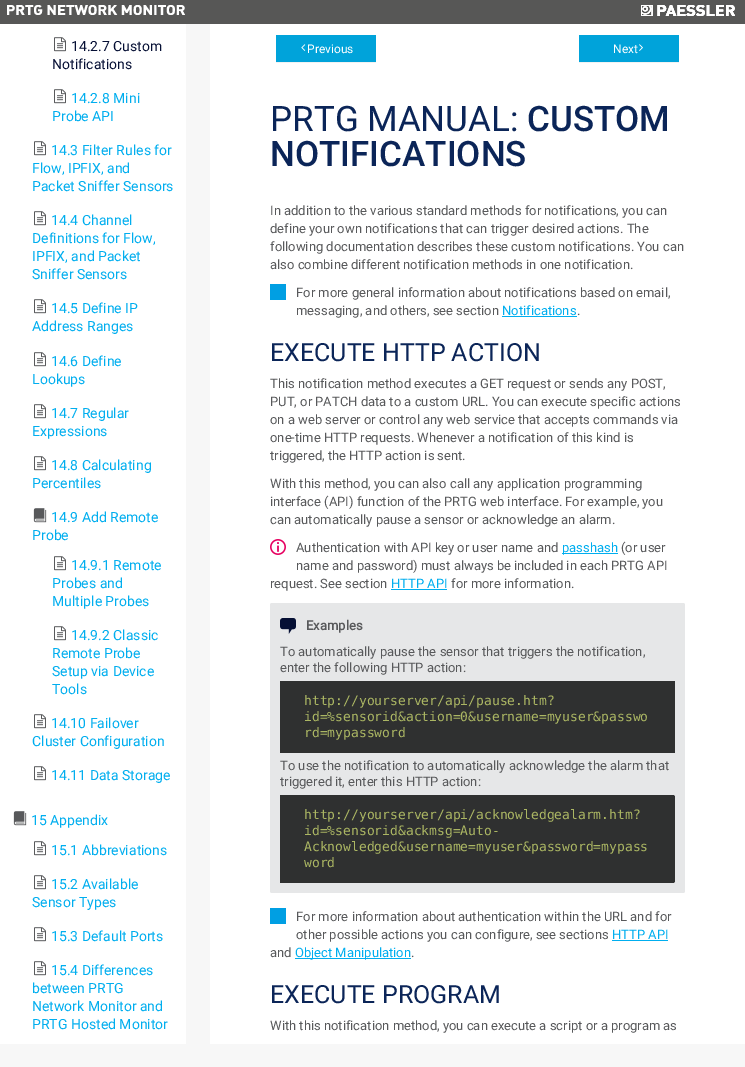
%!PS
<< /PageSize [745 1067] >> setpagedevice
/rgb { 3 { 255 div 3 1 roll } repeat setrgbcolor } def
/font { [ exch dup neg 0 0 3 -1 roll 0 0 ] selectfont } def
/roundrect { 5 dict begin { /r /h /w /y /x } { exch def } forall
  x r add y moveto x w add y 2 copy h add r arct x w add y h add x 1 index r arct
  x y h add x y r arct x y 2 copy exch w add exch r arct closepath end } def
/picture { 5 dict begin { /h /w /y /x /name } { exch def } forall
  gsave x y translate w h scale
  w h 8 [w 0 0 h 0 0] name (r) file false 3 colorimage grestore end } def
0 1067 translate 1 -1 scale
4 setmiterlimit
247 247 247 rgb
0 0 745 1067 rectfill
87 87 86 rgb
0 0 745 24 rectfill
(img/1.rgb) 7 5 178 10 picture
(img/2.rgb) 641 5 94 11 picture
(img/3.rgb) 642 5 93 11 picture
255 255 255 rgb
0 24 186 1020 rectfill
(img/4.rgb) 54 37 12 15 picture
(img/4.rgb) 54 89 12 15 picture
(img/4.rgb) 34 141 12 15 picture
(img/4.rgb) 34 211 12 15 picture
(img/4.rgb) 34 299 12 15 picture
(img/4.rgb) 34 352 12 15 picture
(img/4.rgb) 34 404 12 15 picture
(img/4.rgb) 34 456 12 15 picture
(img/5.rgb) 33 508 14 15 picture
(img/4.rgb) 54 556 12 15 picture
(img/4.rgb) 54 626 12 15 picture
(img/4.rgb) 34 714 12 15 picture
(img/4.rgb) 34 766 12 15 picture
(img/5.rgb) 13 811 14 15 picture
(img/4.rgb) 34 841 12 15 picture
(img/4.rgb) 34 875 12 15 picture
(img/4.rgb) 34 927 12 15 picture
(img/4.rgb) 34 961 12 15 picture
[
  [210 24 535 1020 255 255 255]
  [276 62 100 1 242 242 242]
  [276 35 100 27 0 163 218]
] { aload pop rgb rectfill } forall
(img/6.rgb) 301 44 5 7 picture
242 242 242 rgb
579 62 100 1 rectfill
0 163 218 rgb
579 35 100 27 rectfill
(img/7.rgb) 639 44 4 7 picture
0 159 227 rgb
270 284 16 16 rectfill
0 174 239 rgb
502 316 75 1 rectfill
(img/8.rgb) 270 539 16 16 picture
562 553 56 1 rectfill
391 589 56 1 rectfill
230 231 232 rgb
270 603 415 290 2 roundrect fill
(img/9.rgb) 280 618 16 16 picture
47 48 48 rgb
280 681 395 72 rectfill
280 795 moveto 673 795 lineto 674 795 675 796 675 797 curveto 675 881 lineto 675 882 674 883 673 883 curveto 280 883 lineto closepath fill
[
  [270 908 16 16 0 159 227]
  [612 940 56 1 0 174 239]
  [295 958 116 1 0 174 239]
] { aload pop rgb rectfill } forall
/Roboto-Regular 14 font
5 15 52 rgb
71 51 moveto (14.2.7 Custom) show
52 69 moveto (Notifications) show
0 174 239 rgb
[
  [(14.2.8 Mini) 71 103]
  [(Probe API) 52 121]
  [(14.3 Filter Rules for) 51 155]
  [(Flow, IPFIX, and) 32 173]
  [(Packet Sniffer Sensors) 32 191]
  [(14.4 Channel) 51 225]
  [(Definitions for Flow,) 32 243]
  [(IPFIX, and Packet) 32 261]
  [(Sniffer Sensors) 32 279]
  [(14.5 Define IP) 51 313]
  [(Address Ranges) 32 331]
  [(14.6 Define) 51 366]
  [(Lookups) 32 384]
  [(14.7 Regular) 51 418]
  [(Expressions) 32 436]
  [(14.8 Calculating) 51 470]
  [(Percentiles) 32 488]
  [(14.9 Add Remote) 51 522]
  [(Probe) 32 540]
  [(14.9.1 Remote) 71 570]
  [(Probes and) 52 588]
  [(Multiple Probes) 52 606]
  [(14.9.2 Classic) 71 640]
  [(Remote Probe) 52 658]
  [(Setup via Device) 52 676]
  [(Tools) 52 694]
  [(14.10 Failover) 51 728]
  [(Cluster Configuration) 32 746]
  [(14.11 Data Storage) 51 780]
  [(15 Appendix) 31 825]
  [(15.1 Abbreviations) 51 855]
  [(15.2 Available) 51 889]
  [(Sensor Types) 32 907]
  [(15.3 Default Ports) 51 941]
  [(15.4 Differences) 51 975]
  [(between PRTG) 32 993]
  [(Network Monitor and) 32 1011]
  [(PRTG Hosted Monitor) 32 1029]
] { aload pop moveto show } forall
/Roboto-Regular 12 font
255 255 255 rgb
307 53 moveto (Previous) show
613 53 moveto (Next) show
/Roboto-Regular 35 font
11 37 88 rgb
270 131 moveto (PRTG MANUAL:) show
/Roboto-Medium 35 font
527 131 moveto (CUSTOM) show
270 166 moveto (NOTIFICATIONS) show
/Roboto-Regular 13 font
88 89 91 rgb
[
  [(In addition to the various standard methods for notifications, you can) 270 215]
  [(define your own notifications that can trigger desired actions. The) 270 233]
  [(following documentation describes these custom notifications. You can) 270 251]
  [(also combine different notification methods in one notification.) 270 269]
  [(For more general information about notifications based on email,) 296 297]
  [(messaging, and others, see section) 296 315]
] { aload pop moveto show } forall
0 174 239 rgb
502 315 moveto (Notifications) show
88 89 91 rgb
577 315 moveto (.) show
/Roboto-Regular 25 font
11 37 88 rgb
270 361 moveto (EXECUTE HTTP ACTION) show
/Roboto-Regular 13 font
88 89 91 rgb
[
  [(This notification method executes a GET request or sends any POST,) 270 388]
  [(PUT, or PATCH data to a custom URL. You can execute specific actions) 270 406]
  [(on a web server or control any web service that accepts commands via) 270 424]
  [(one-time HTTP requests. Whenever a notification of this kind is) 270 442]
  [(triggered, the HTTP action is sent.) 270 460]
  [(With this method, you can also call any application programming) 270 488]
  [(interface \(API\) function of the PRTG web interface. For example, you) 270 506]
  [(can automatically pause a sensor or acknowledge an alarm.) 270 524]
  [(Authentication with API key or user name and) 296 552]
] { aload pop moveto show } forall
0 174 239 rgb
562 552 moveto (passhash) show
88 89 91 rgb
[
  [(\(or user) 621 552]
  [(name and password\) must always be included in each PRTG API) 296 570]
  [(request. See section) 270 588]
] { aload pop moveto show } forall
0 174 239 rgb
391 588 moveto (HTTP API) show
88 89 91 rgb
451 588 moveto (for more information.) show
/Roboto-Bold 13 font
306 630 moveto (Examples) show
/Roboto-Regular 13 font
280 656 moveto (To automatically pause the sensor that triggers the notification,) show
280 672 moveto (enter the following HTTP action:) show
/DejaVuSansMono-Regular 13 font
171 182 99 rgb
[
  [(http://yourserver/api/pause.htm?) 304 705]
  [(id=%sensorid&action=0&username=myuser&passwo) 304 721]
  [(rd=mypassword) 304 737]
] { aload pop moveto show } forall
/Roboto-Regular 13 font
88 89 91 rgb
280 770 moveto (To use the notification to automatically acknowledge the alarm that) show
280 786 moveto (triggered it, enter this HTTP action:) show
/DejaVuSansMono-Regular 13 font
171 182 99 rgb
[
  [(http://yourserver/api/acknowledgealarm.htm?) 304 819]
  [(id=%sensorid&ackmsg=Auto-) 304 835]
  [(Acknowledged&username=myuser&password=mypass) 304 851]
  [(word) 304 867]
] { aload pop moveto show } forall
/Roboto-Regular 13 font
88 89 91 rgb
296 921 moveto (For more information about authentication within the URL and for) show
296 939 moveto (other possible actions you can configure, see sections) show
0 174 239 rgb
612 939 moveto (HTTP API) show
88 89 91 rgb
270 957 moveto (and) show
0 174 239 rgb
295 957 moveto (Object Manipulation) show
88 89 91 rgb
411 957 moveto (.) show
/Roboto-Regular 25 font
11 37 88 rgb
270 1003 moveto (EXECUTE PROGRAM) show
/Roboto-Regular 13 font
88 89 91 rgb
270 1030 moveto (With this notification method, you can execute a script or a program as) show
showpage
